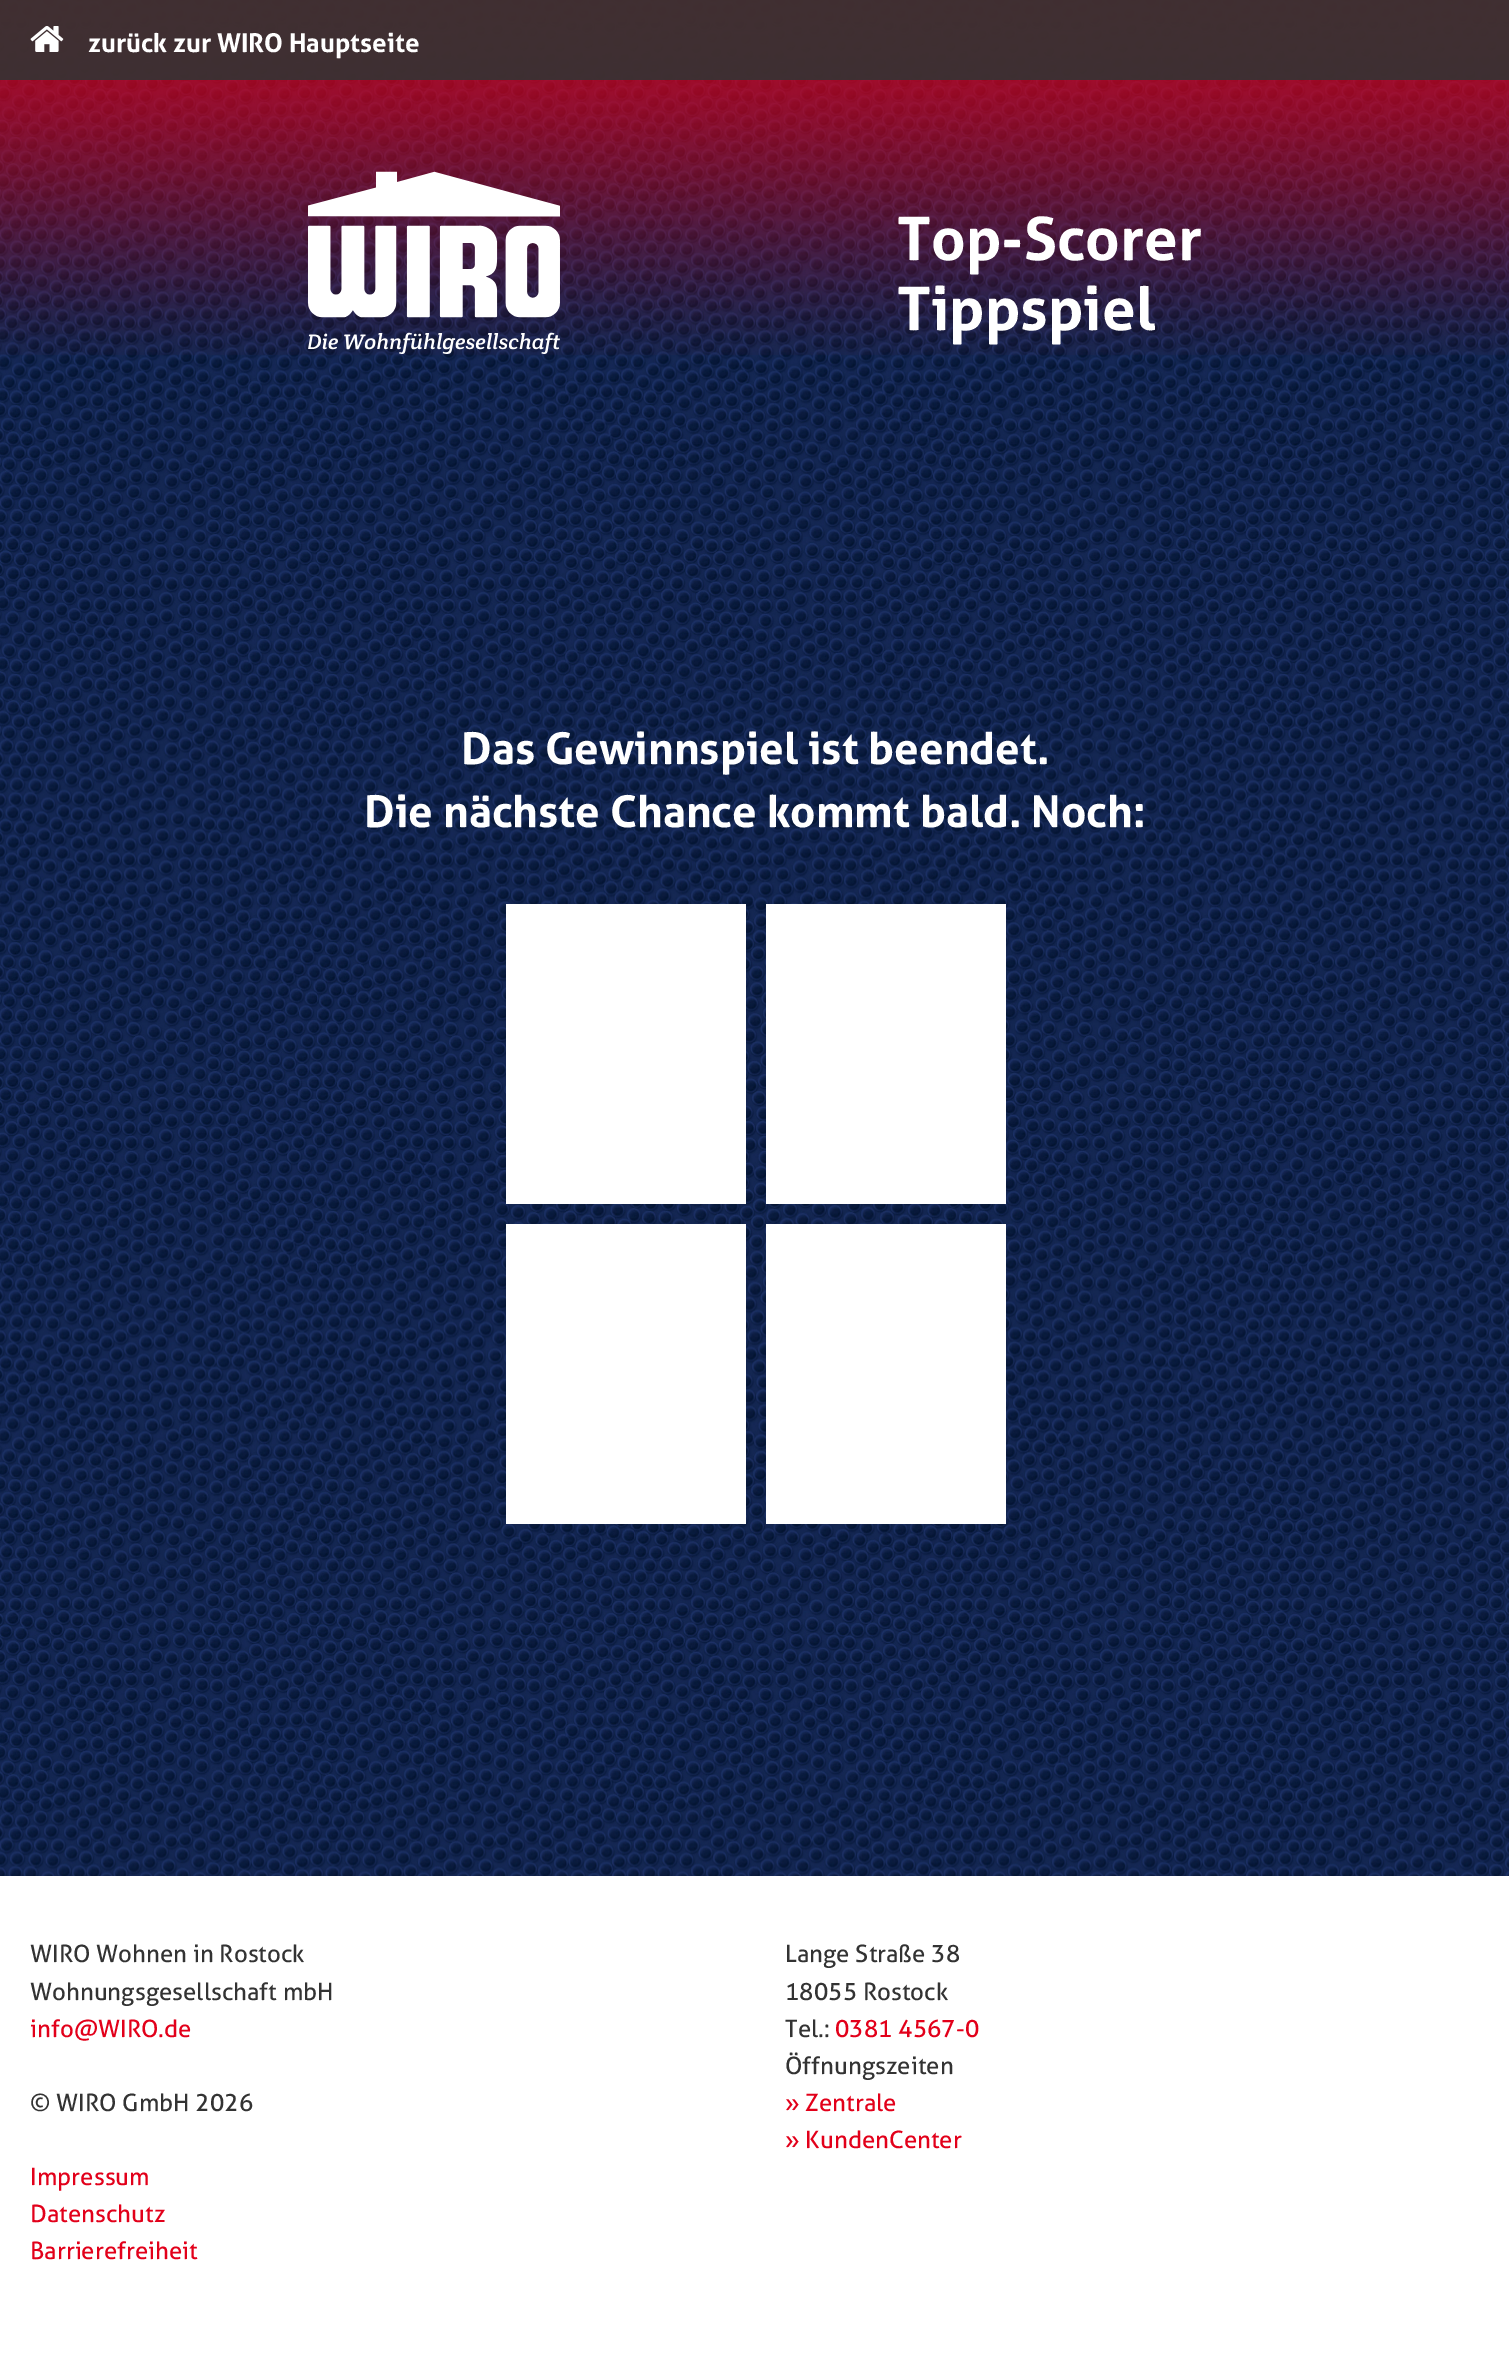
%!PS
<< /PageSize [1509 2369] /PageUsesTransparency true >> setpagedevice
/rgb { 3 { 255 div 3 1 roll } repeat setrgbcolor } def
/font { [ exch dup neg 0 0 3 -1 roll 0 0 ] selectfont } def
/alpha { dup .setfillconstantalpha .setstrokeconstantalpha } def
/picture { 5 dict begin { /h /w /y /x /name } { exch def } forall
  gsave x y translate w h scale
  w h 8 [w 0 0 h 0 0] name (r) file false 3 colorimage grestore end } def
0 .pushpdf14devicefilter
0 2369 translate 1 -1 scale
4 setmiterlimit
255 255 255 rgb
0 0 1509 2369 rectfill
(img/2.rgb) 0 0 1509 1876 picture
(img/3.rgb) 0 0 1509 355 picture
0.9 alpha
51 51 51 rgb
0 0 1509 80 rectfill
1 alpha
(img/1.rgb) 30 26 34 26 picture
(img/4.rgb) 308 171 252 183 picture
[
  [506 904 240 300 255 255 255]
  [766 904 240 300 255 255 255]
  [506 1224 240 300 255 255 255]
  [766 1224 240 300 255 255 255]
] { aload pop rgb rectfill } forall
/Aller-Bold 26 font
88 52 moveto (zurück zur WIRO Hauptseite) show
/Aller-Bold 60 font
897 260 moveto (Top-Scorer) show
897 330 moveto (Tippspiel) show
/Aller-Bold 44 font
461 764 moveto (Das Gewinnspiel ist beendet.) show
364 827 moveto (Die nächste Chance kommt bald. Noch:) show
/Aller-Regular 24 font
51 51 51 rgb
30 1962 moveto (WIRO Wohnen in Rostock) show
30 2000 moveto (Wohnungsgesellschaft mbH) show
226 0 26 rgb
30 2037 moveto (info@WIRO.de) show
51 51 51 rgb
[
  [(© WIRO GmbH 2026) 30 2111]
  [(Lange Straße 38) 785 1962]
  [(18055 Rostock) 785 2000]
  [(Tel.:) 785 2037]
] { aload pop moveto show } forall
226 0 26 rgb
835 2037 moveto (0381 4567-0) show
51 51 51 rgb
785 2074 moveto (Öffnungszeiten) show
226 0 26 rgb
[
  [(» Zentrale) 785 2111]
  [(» KundenCenter) 785 2148]
  [(Impressum) 30 2185]
  [(Datenschutz) 30 2222]
  [(Barrierefreiheit) 30 2259]
] { aload pop moveto show } forall
.poppdf14devicefilter showpage
